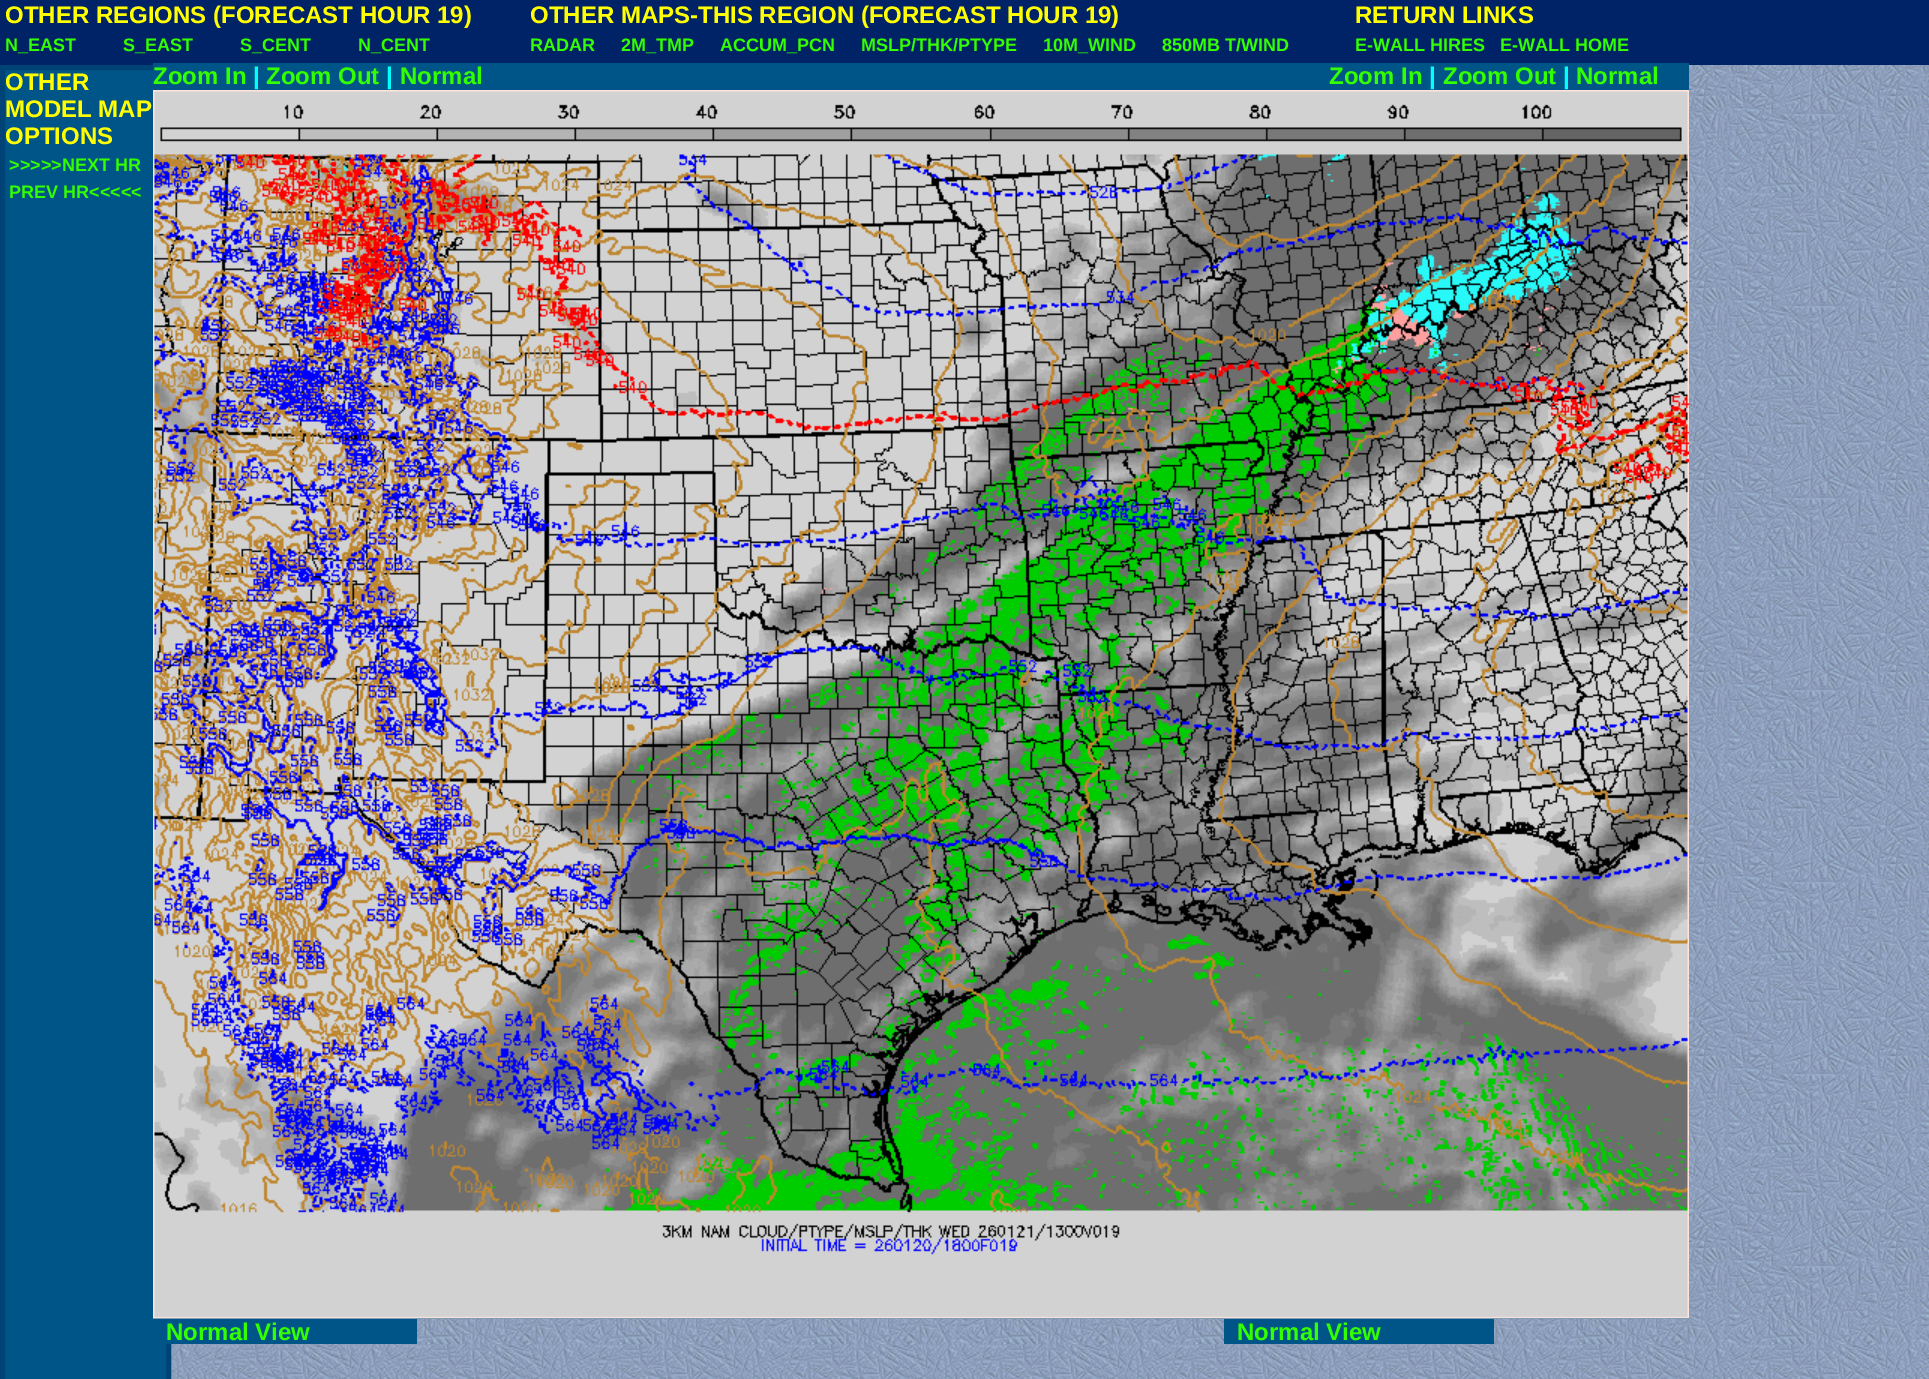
%!PS
<< /PageSize [1929 1379] >> setpagedevice
/rgb { 3 { 255 div 3 1 roll } repeat setrgbcolor } def
/font { [ exch dup neg 0 0 3 -1 roll 0 0 ] selectfont } def
/picture { 5 dict begin { /h /w /y /x /name } { exch def } forall
  gsave x y translate w h scale
  w h 8 [w 0 0 h 0 0] name (r) file false 3 colorimage grestore end } def
0 1379 translate 1 -1 scale
4 setmiterlimit
255 255 255 rgb
0 0 1929 1379 rectfill
(img/1.rgb) 171 65 1758 1314 picture
0 34 102 rgb
0 0 1929 65 rectfill
0 85 136 rgb
2.5 67.5 moveto 168.5 67.5 lineto 168.5 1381.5 lineto 2.5 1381.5 lineto closepath gsave fill grestore
0 68 119 rgb
5 setlinewidth
stroke
0 85 136 rgb
153 63 1536 1256 rectfill
(img/2.rgb) 153 90 1536 1229 picture
166 1319 251 25 rectfill
1224 1319 270 25 rectfill
/LiberationSans-Bold 24 font
255 255 0 rgb
5 23 moveto (OTHER REGIONS \(FORECAST HOUR 19\)) show
/LiberationSans-Bold 18 font
51 255 0 rgb
[
  [(N_EAST) 5 51]
  [(S_EAST) 123 51]
  [(S_CENT) 240 51]
  [(N_CENT) 358 51]
] { aload pop moveto show } forall
/LiberationSans-Bold 24 font
255 255 0 rgb
530 23 moveto (OTHER MAPS-THIS REGION \(FORECAST HOUR 19\)) show
/LiberationSans-Bold 18 font
51 255 0 rgb
[
  [(RADAR) 530 51]
  [(2M_TMP) 621 51]
  [(ACCUM_PCN) 720 51]
  [(MSLP/THK/PTYPE) 861 51]
  [(10M_WIND) 1043 51]
  [(850MB T/WIND) 1162 51]
] { aload pop moveto show } forall
/LiberationSans-Bold 24 font
255 255 0 rgb
1355 23 moveto (RETURN LINKS) show
/LiberationSans-Bold 18 font
51 255 0 rgb
1355 51 moveto (E-WALL HIRES) show
1500 51 moveto (E-WALL HOME) show
/LiberationSans-Bold 24 font
255 255 0 rgb
[
  [(OTHER) 5 90]
  [(MODEL MAP) 5 117]
  [(OPTIONS) 5 144]
] { aload pop moveto show } forall
/LiberationSans-Bold 18 font
51 255 0 rgb
9 171 moveto (>>>>>NEXT HR) show
9 198 moveto (PREV HR<<<<<) show
/LiberationSans-Bold 24 font
153 84 moveto (Zoom In) show
0 255 255 rgb
253 84 moveto (|) show
51 255 0 rgb
266 84 moveto (Zoom Out) show
0 255 255 rgb
386 84 moveto (|) show
51 255 0 rgb
400 84 moveto (Normal) show
1329 84 moveto (Zoom In) show
0 255 255 rgb
1429 84 moveto (|) show
51 255 0 rgb
1443 84 moveto (Zoom Out) show
0 255 255 rgb
1563 84 moveto (|) show
51 255 0 rgb
[
  [(Normal) 1576 84]
  [(Normal View) 166 1340]
  [(Normal View) 1237 1340]
] { aload pop moveto show } forall
showpage
